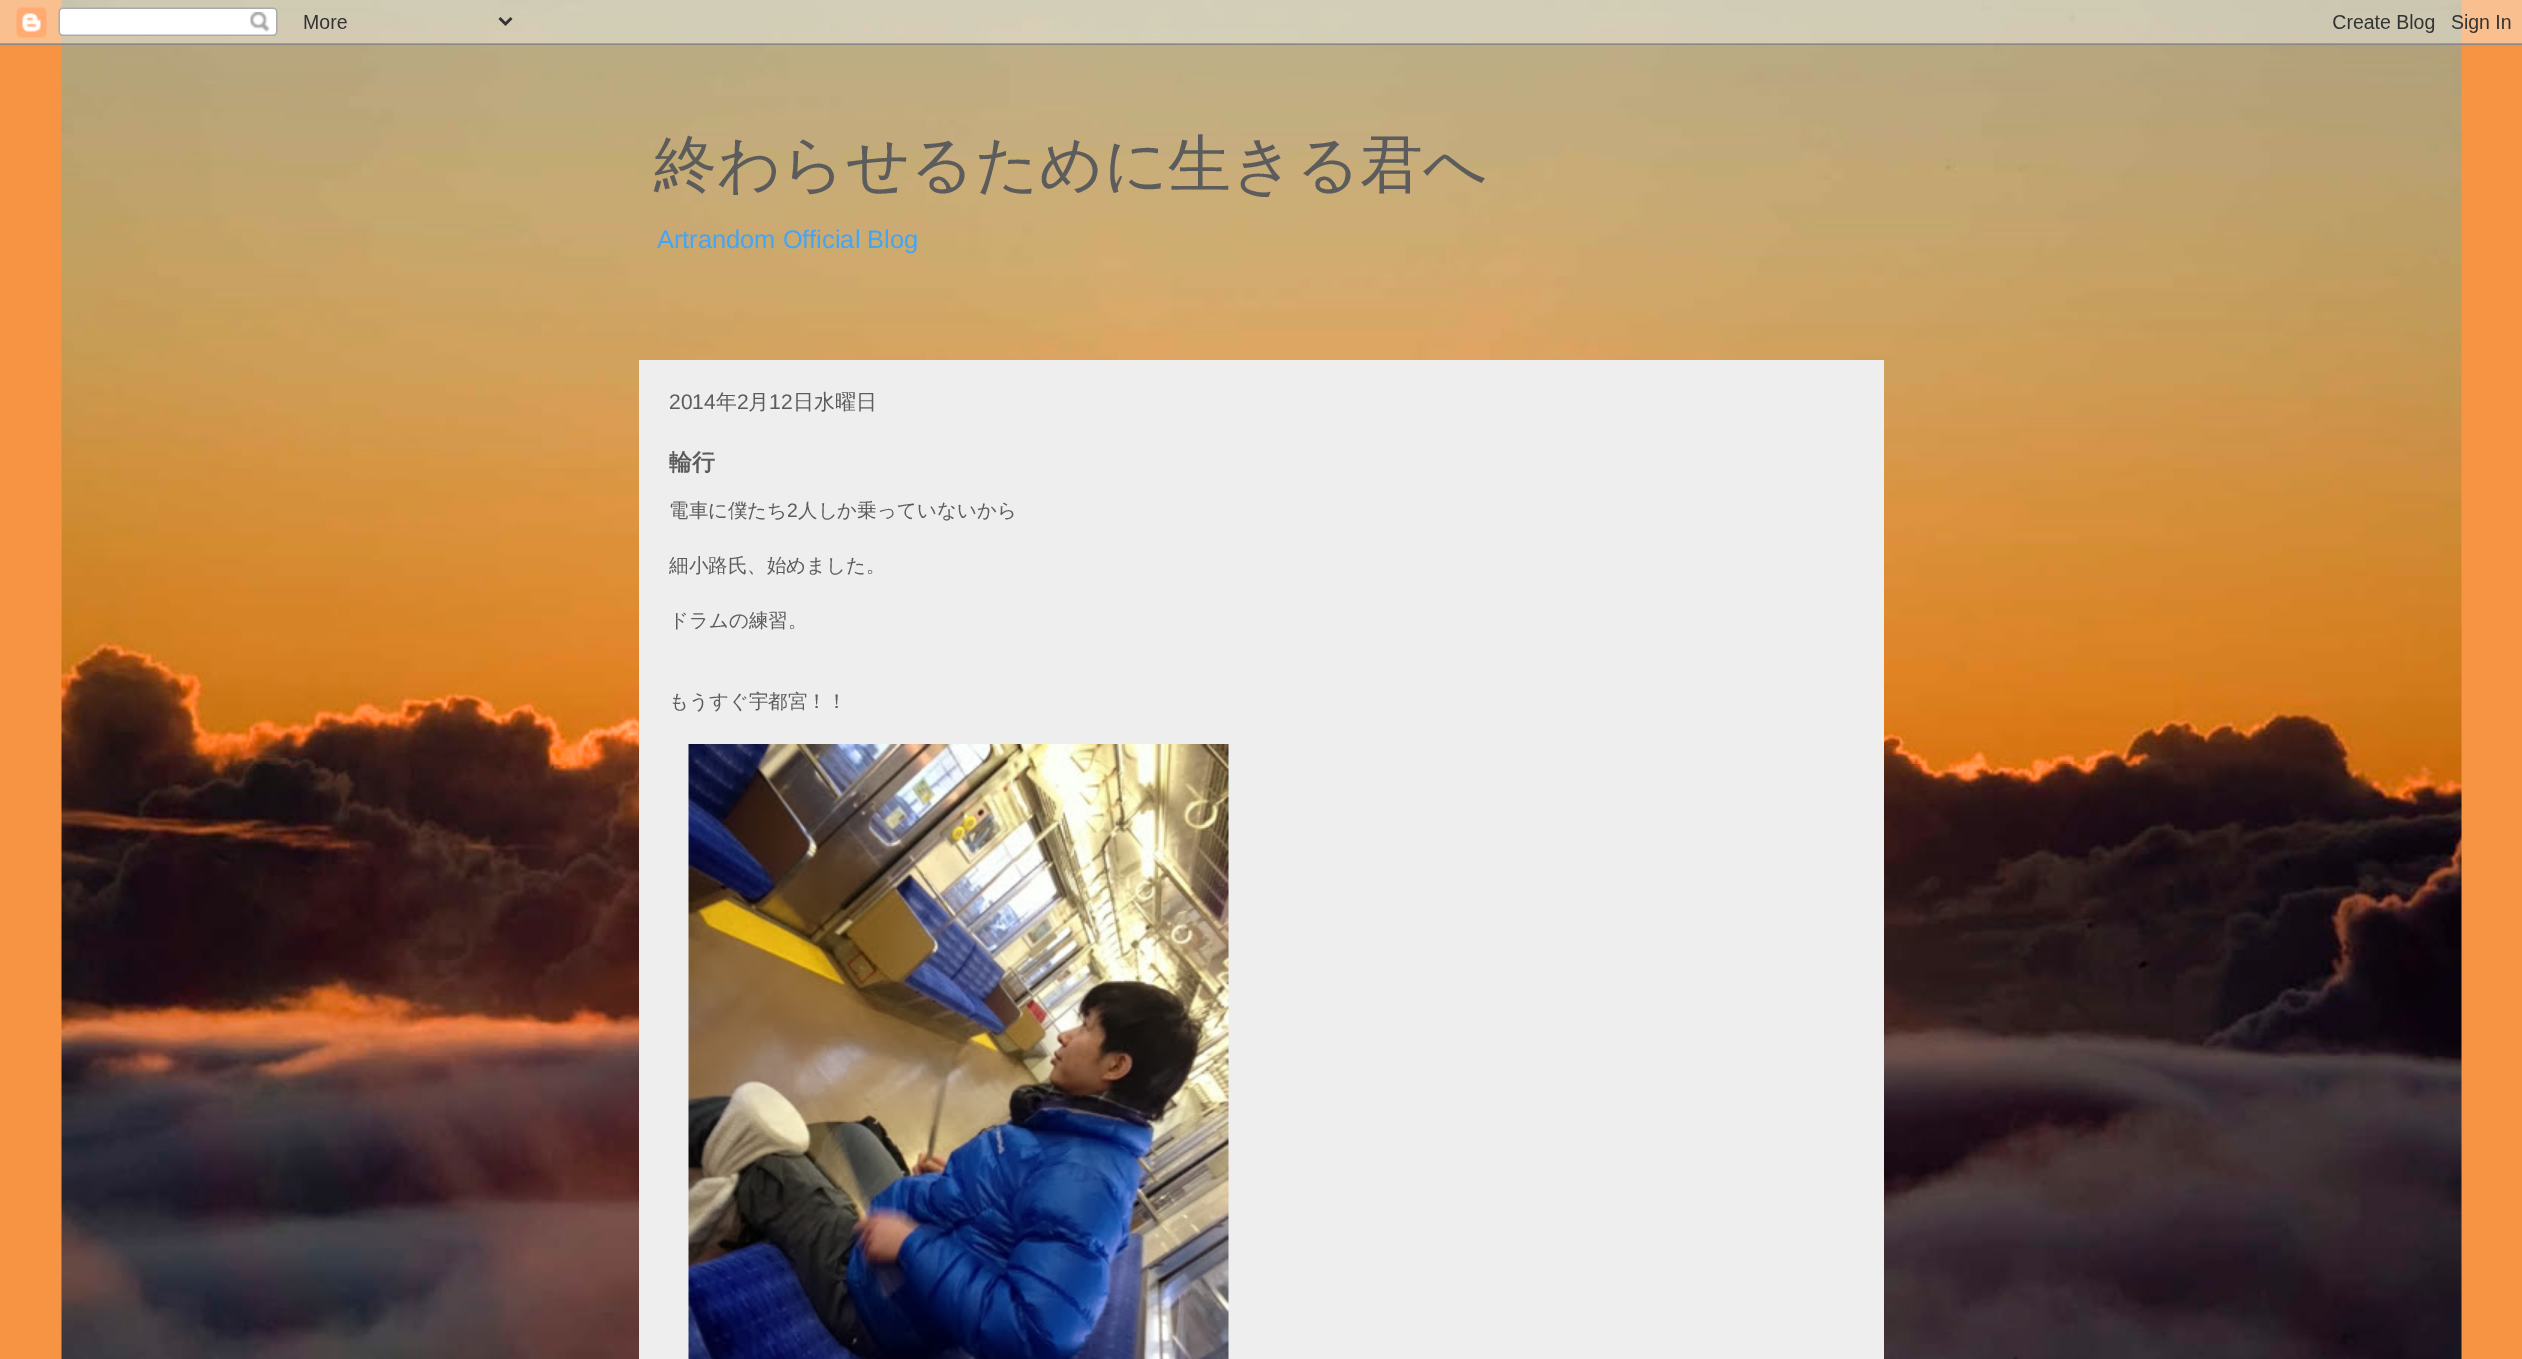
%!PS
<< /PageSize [2522 1359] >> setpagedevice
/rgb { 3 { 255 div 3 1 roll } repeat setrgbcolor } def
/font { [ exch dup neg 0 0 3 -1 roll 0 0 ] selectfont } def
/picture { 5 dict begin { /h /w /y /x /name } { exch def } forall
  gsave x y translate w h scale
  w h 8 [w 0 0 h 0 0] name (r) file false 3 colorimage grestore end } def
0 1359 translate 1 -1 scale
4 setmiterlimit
247 148 67 rgb
0 0 2522 1359 rectfill
(img/1.rgb) 61 0 2401 1359 picture
(img/2.rgb) 0 0 2522 45 picture
238 238 238 rgb
639 360 1245 999 rectfill
(img/3.rgb) 688 744 541 615 picture
/WenQuanYiZenHei-Medium 63 font
92 92 92 rgb
654 186 moveto (終わらせるために生きる君へ) show
/LiberationSans-Regular 25.4 font
67 165 247 rgb
657 248 moveto (Artrandom Official Blog) show
/LiberationSans-Regular 21 font
92 92 92 rgb
669 409 moveto (2014) show
/WenQuanYiZenHei-Medium 21 font
716 409 moveto (年) show
/LiberationSans-Regular 21 font
737 409 moveto (2) show
/WenQuanYiZenHei-Medium 21 font
748 409 moveto (月) show
/LiberationSans-Regular 21 font
769 409 moveto (12) show
/WenQuanYiZenHei-Medium 21 font
793 409 moveto (日水曜日) show
/WenQuanYiZenHei-Bold 23 font
669 470 moveto (輪行) show
/WenQuanYiZenHei-Medium 19.5 font
669 517 moveto (電車に僕たち) show
/LiberationSans-Regular 19.5 font
787 517 moveto (2) show
/WenQuanYiZenHei-Medium 19.5 font
[
  [(人しか乗っていないから) 798 517]
  [(細小路氏、始めました。) 669 572]
  [(ドラムの練習。) 669 627]
  [(もうすぐ宇都宮！！) 669 708]
] { aload pop moveto show } forall
showpage
